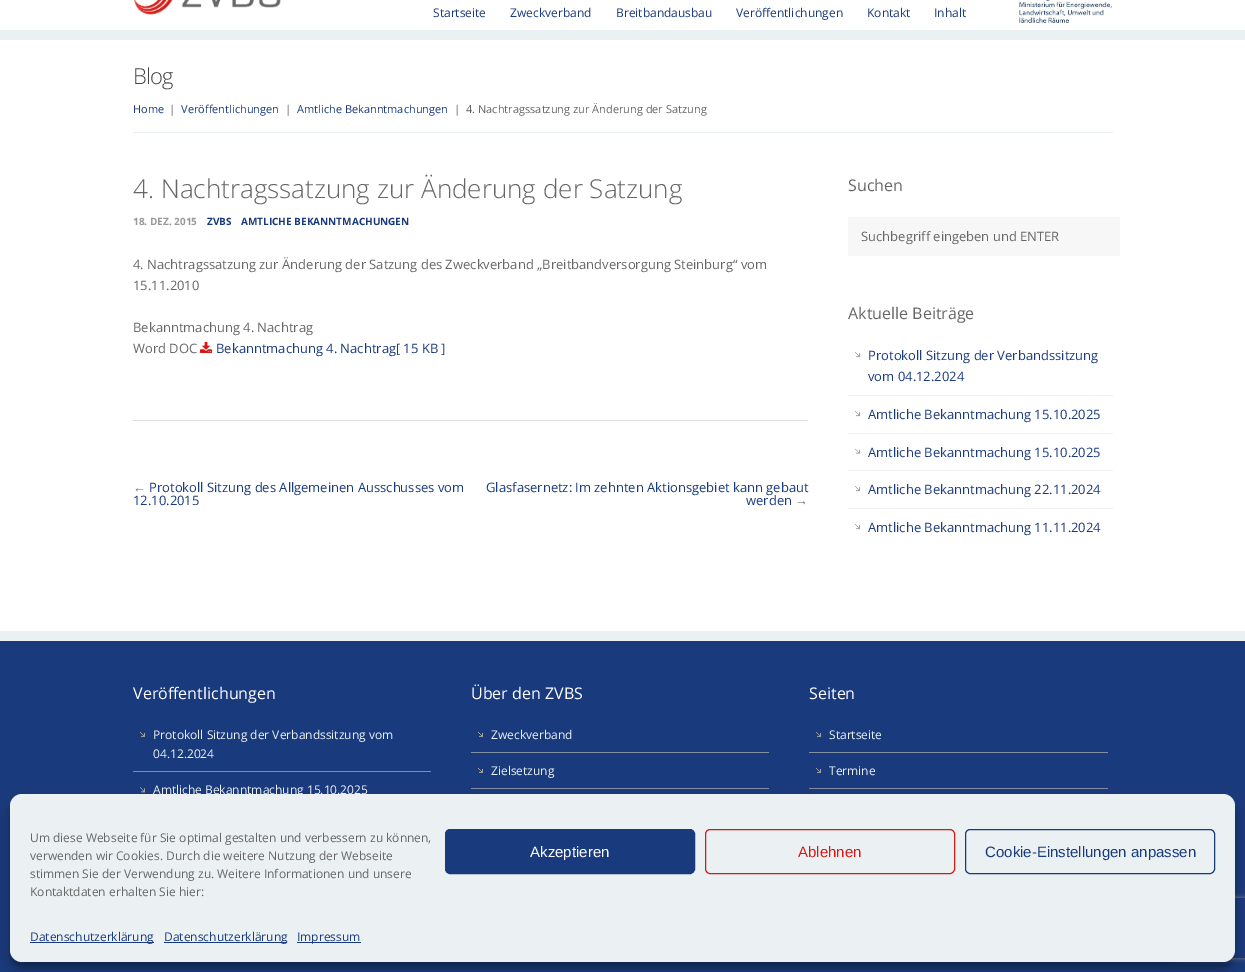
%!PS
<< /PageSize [1245 972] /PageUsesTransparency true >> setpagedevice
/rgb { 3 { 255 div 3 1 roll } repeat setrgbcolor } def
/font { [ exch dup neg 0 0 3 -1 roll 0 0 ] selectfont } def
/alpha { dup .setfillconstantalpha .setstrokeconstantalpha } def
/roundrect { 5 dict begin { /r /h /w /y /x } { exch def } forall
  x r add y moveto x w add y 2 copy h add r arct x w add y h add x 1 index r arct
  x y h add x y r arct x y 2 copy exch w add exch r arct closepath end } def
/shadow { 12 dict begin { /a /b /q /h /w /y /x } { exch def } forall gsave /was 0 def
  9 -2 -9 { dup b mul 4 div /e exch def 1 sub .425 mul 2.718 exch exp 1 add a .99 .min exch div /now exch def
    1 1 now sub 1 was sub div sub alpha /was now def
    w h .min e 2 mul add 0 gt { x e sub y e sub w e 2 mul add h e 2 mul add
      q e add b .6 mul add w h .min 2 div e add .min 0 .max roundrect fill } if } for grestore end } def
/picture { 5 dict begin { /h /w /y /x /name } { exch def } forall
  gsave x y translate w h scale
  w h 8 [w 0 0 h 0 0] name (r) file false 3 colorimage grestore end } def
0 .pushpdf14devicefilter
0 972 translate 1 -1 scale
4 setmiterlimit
255 255 255 rgb
0 0 1245 972 rectfill
235 241 242 rgb
0 30 1245 10 rectfill
(img/1.rgb) 134 0 147 15 picture
(img/2.rgb) 1017 0 95 23 picture
133 132 980 1 rectfill
221 221 221 rgb
133 420 675 1 rectfill
(img/3.rgb) 200 341 13 12 picture
247 247 248 rgb
848 217 272 39 rectfill
(img/4.rgb) 855 352 6 6 picture
240 240 240 rgb
848 395 265 1 rectfill
(img/5.rgb) 855 411 6 6 picture
848 433 265 1 rectfill
(img/6.rgb) 855 448 6 6 picture
848 470 265 1 rectfill
(img/5.rgb) 855 486 6 6 picture
848 508 265 1 rectfill
(img/5.rgb) 855 524 6 6 picture
26 58 126 rgb
0 641 1245 331 rectfill
235 241 242 rgb
0 631 1245 10 rectfill
(img/7.rgb) 140 732 5 5 picture
129 143 161 rgb
133 771 298 1 rectfill
(img/8.rgb) 140 787 5 6 picture
(img/9.rgb) 478 732 5 5 picture
471 752 298 1 rectfill
(img/9.rgb) 478 768 5 5 picture
471 788 298 1 rectfill
(img/10.rgb) 816 732 6 5 picture
809 752 299 1 rectfill
(img/10.rgb) 816 768 6 5 picture
809 788 299 1 rectfill
0 0 0 rgb
10 800 1225 168 12 3 0.23 shadow
10 804 1225 168 12 10 0.19 shadow
gsave
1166 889 moveto 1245 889 lineto 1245 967 lineto 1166 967 lineto closepath 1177 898 moveto 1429 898 lineto 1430 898 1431 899 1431 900 curveto 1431 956 lineto 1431 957 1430 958 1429 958 curveto 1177 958 lineto 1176 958 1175 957 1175 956 curveto 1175 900 lineto 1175 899 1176 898 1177 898 curveto closepath eoclip newpath
128 128 128 rgb
1175 898 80 60 2 2.5 1 shadow
grestore
235 241 242 rgb
10 794 1225 168 12 roundrect fill
26 58 126 rgb
445.5 829.5 249 44 4.5 roundrect gsave fill grestore
stroke
214 25 23 rgb
705.5 829.5 249 44 4.5 roundrect stroke
26 58 126 rgb
965.5 829.5 249 44 4.5 roundrect stroke
[
  [30 942 124 1 26 58 126]
  [164 942 123 1 26 58 126]
  [297 942 64 1 26 58 126]
] { aload pop rgb rectfill } forall
/OpenSans-Regular 12 font
[
  [(Startseite) 433 17]
  [(Zweckverband) 510 17]
  [(Breitbandausbau) 616 17]
  [(Veröffentlichungen) 736 17]
  [(Kontakt) 867 17]
  [(Inhalt) 934 17]
] { aload pop moveto show } forall
/OpenSans-Light 22 font
68 68 68 rgb
133 84 moveto -1 0 (Blog) ashow
/OpenSans-Regular 11 font
26 58 126 rgb
133 113 moveto (Home) show
102 102 102 rgb
169 113 moveto (|) show
26 58 126 rgb
181 113 moveto (Veröffentlichungen) show
102 102 102 rgb
285 113 moveto (|) show
26 58 126 rgb
297 113 moveto (Amtliche Bekanntmachungen) show
102 102 102 rgb
454 113 moveto (|) show
466 113 moveto (4. Nachtragssatzung zur Änderung der Satzung) show
/OpenSans-Light 26 font
133 198 moveto (4. Nachtragssatzung zur Änderung der Satzung) show
/OpenSans-Bold 10 font
153 153 153 rgb
133 225 moveto (18. DEZ. 2015) show
26 58 126 rgb
207 225 moveto (ZVBS) show
241 225 moveto (AMTLICHE BEKANNTMACHUNGEN) show
/OpenSans-Regular 13 font
102 102 102 rgb
[
  [(4. Nachtragssatzung zur Änderung der Satzung des Zweckverband „Breitbandversorgung Steinburg“ vom) 133 269]
  [(15.11.2010) 133 290]
  [(Bekanntmachung 4. Nachtrag) 133 332]
  [(Word DOC) 133 353]
] { aload pop moveto show } forall
26 58 126 rgb
216 353 moveto (Bekanntmachung 4. Nachtrag[ 15 KB ]) show
/LiberationSans-Regular 13 font
102 102 102 rgb
133 492 moveto (←) show
/OpenSans-Regular 13 font
26 58 126 rgb
[
  [(Protokoll Sitzung des Allgemeinen Ausschusses vom) 149 492]
  [(12.10.2015) 133 505]
  [(Glasfasernetz: Im zehnten Aktionsgebiet kann gebaut) 486 492]
  [(werden) 746 505]
] { aload pop moveto show } forall
/LiberationSans-Regular 13 font
102 102 102 rgb
795 505 moveto (→) show
/OpenSans-Regular 16 font
848 191 moveto (Suchen) show
/OpenSans-Regular 13 font
861 241 moveto (Suchbegriff eingeben und ENTER) show
/OpenSans-Regular 16 font
848 319 moveto (Aktuelle Beiträge) show
/OpenSans-Regular 13 font
26 58 126 rgb
[
  [(Protokoll Sitzung der Verbandssitzung) 868 360]
  [(vom 04.12.2024) 868 381]
  [(Amtliche Bekanntmachung 15.10.2025) 868 419]
  [(Amtliche Bekanntmachung 15.10.2025) 868 457]
  [(Amtliche Bekanntmachung 22.11.2024) 868 494]
  [(Amtliche Bekanntmachung 11.11.2024) 868 532]
] { aload pop moveto show } forall
/OpenSans-Regular 16 font
255 255 255 rgb
133 699 moveto (Veröffentlichungen) show
/OpenSans-Regular 12 font
235 241 242 rgb
[
  [(Protokoll Sitzung der Verbandssitzung vom) 153 739]
  [(04.12.2024) 153 758]
  [(Amtliche Bekanntmachung 15.10.2025) 153 794]
] { aload pop moveto show } forall
/OpenSans-Regular 16 font
255 255 255 rgb
471 699 moveto (Über den ZVBS) show
/OpenSans-Regular 12 font
235 241 242 rgb
491 739 moveto (Zweckverband) show
491 775 moveto (Zielsetzung) show
/OpenSans-Regular 16 font
255 255 255 rgb
809 699 moveto (Seiten) show
/OpenSans-Regular 12 font
235 241 242 rgb
829 739 moveto (Startseite) show
829 775 moveto (Termine) show
102 102 102 rgb
[
  [(Um diese Webseite für Sie optimal gestalten und verbessern zu können,) 30 842]
  [(verwenden wir Cookies. Durch die weitere Nutzung der Webseite) 30 860]
  [(stimmen Sie der Verwendung zu. Weitere Informationen und unsere) 30 878]
  [(Kontaktdaten erhalten Sie hier:) 30 896]
] { aload pop moveto show } forall
/LiberationSans-Regular 15 font
255 255 255 rgb
530 857 moveto (Akzeptieren) show
214 25 23 rgb
798 857 moveto (Ablehnen) show
26 58 126 rgb
985 857 moveto (Cookie-Einstellungen anpassen) show
/OpenSans-Regular 12 font
[
  [(Datenschutzerklärung) 30 941]
  [(Datenschutzerklärung) 164 941]
  [(Impressum) 297 941]
] { aload pop moveto show } forall
.poppdf14devicefilter showpage
